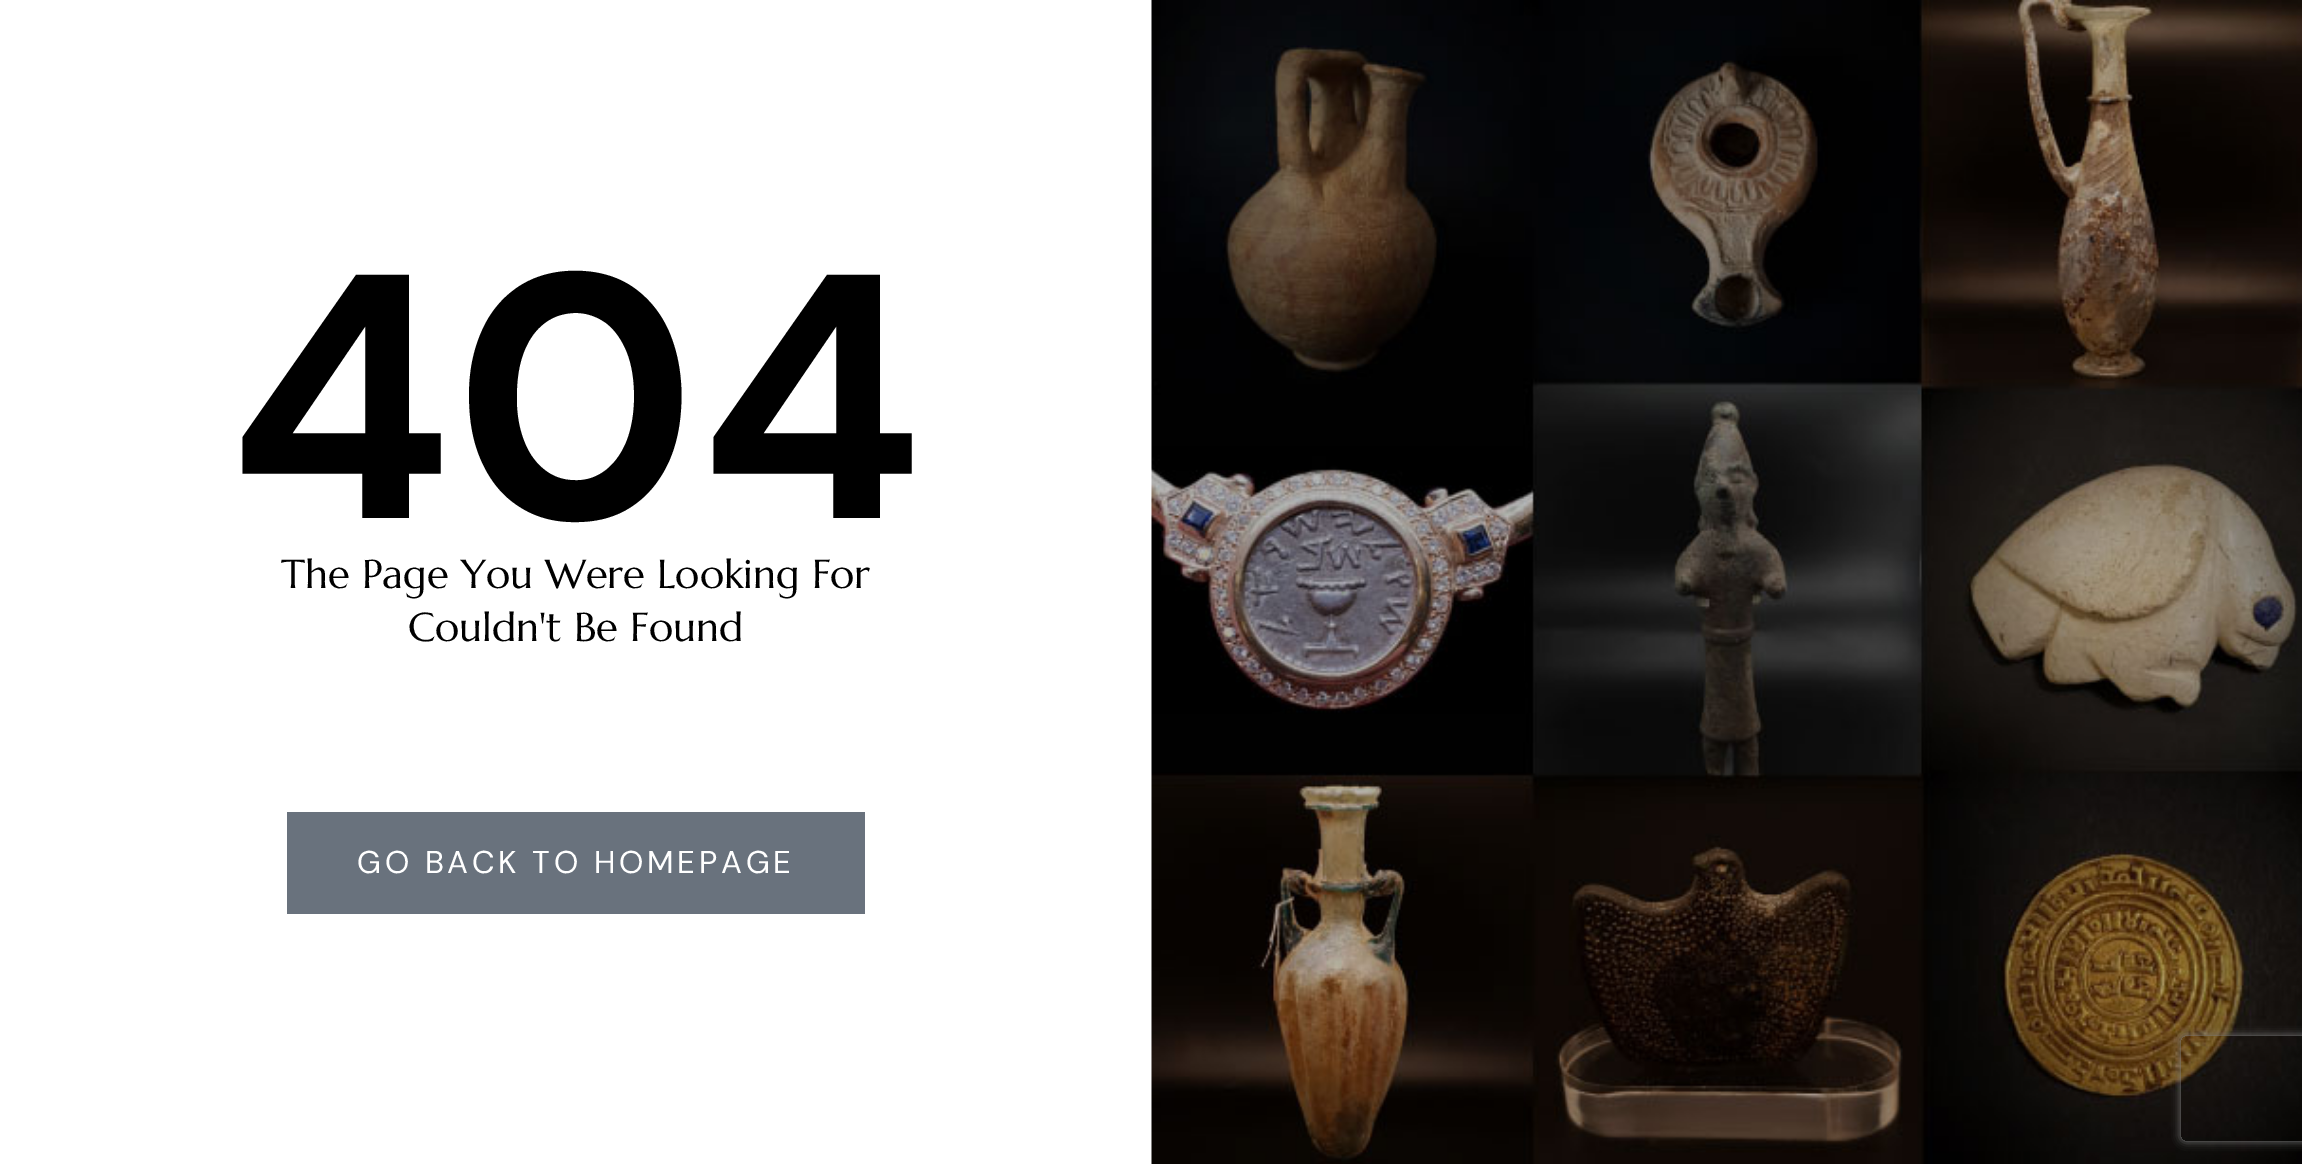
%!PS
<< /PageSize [2302 1164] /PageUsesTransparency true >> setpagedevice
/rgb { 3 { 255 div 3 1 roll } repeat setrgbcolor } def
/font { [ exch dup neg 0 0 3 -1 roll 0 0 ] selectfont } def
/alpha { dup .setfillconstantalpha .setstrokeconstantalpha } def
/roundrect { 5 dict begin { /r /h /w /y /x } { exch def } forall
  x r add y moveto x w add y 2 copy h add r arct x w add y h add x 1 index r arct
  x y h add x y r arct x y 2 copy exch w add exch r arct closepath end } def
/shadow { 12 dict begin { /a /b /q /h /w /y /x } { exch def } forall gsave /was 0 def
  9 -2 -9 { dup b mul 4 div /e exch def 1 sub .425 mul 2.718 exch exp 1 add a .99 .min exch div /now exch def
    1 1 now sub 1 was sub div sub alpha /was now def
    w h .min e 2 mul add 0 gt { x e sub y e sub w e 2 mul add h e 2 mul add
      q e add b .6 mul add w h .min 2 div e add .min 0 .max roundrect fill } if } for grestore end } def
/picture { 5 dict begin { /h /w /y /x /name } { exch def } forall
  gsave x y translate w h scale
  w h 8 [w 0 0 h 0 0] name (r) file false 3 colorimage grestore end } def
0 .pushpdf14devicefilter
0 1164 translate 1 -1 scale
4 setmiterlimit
255 255 255 rgb
0 0 2302 1164 rectfill
105 114 125 rgb
287 812 578 102 rectfill
(img/1.rgb) 1151 0 1151 1164 picture
gsave
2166 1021 moveto 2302 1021 lineto 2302 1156 lineto 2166 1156 lineto closepath 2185 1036 moveto 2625 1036 lineto 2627 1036 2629 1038 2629 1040 curveto 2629 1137 lineto 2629 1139 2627 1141 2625 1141 curveto 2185 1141 lineto 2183 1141 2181 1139 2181 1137 curveto 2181 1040 lineto 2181 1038 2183 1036 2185 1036 curveto closepath eoclip newpath
128 128 128 rgb
2181 1036 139 105 4 4.5 1 shadow
grestore
/DMSans-Bold 348 font
0 0 0 rgb
227 518 moveto (404) show
/Marcellus-Regular 40.25 font
281 588 moveto (The Page You Were Looking For) show
408 641 moveto (Couldn't Be Found) show
/DMSans-Regular 31.5 font
255 255 255 rgb
357 873 moveto 3.7 0 (GO BACK TO HOMEPAGE) ashow
.poppdf14devicefilter showpage
